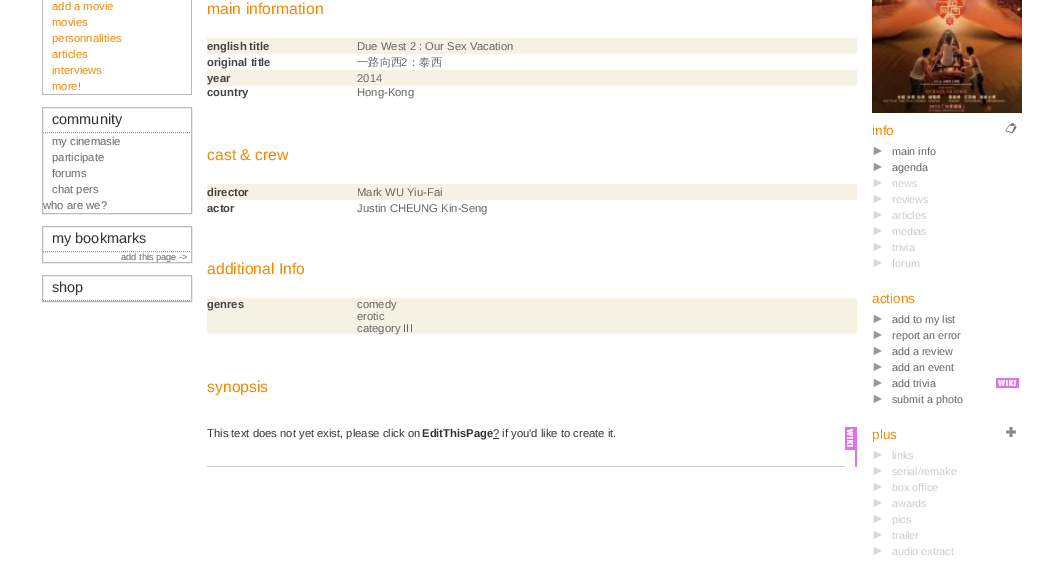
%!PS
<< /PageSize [1063 562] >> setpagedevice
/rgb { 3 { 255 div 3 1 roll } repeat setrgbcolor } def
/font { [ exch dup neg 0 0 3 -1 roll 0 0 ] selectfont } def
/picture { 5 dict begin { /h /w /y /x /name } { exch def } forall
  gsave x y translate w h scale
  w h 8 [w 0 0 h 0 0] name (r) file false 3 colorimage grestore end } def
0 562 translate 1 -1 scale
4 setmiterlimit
255 255 255 rgb
0 0 1063 562 rectfill
[
  [191 0 1 95 187 187 187]
  [42 94 150 1 187 187 187]
  [42 0 1 95 187 187 187]
] { aload pop rgb rectfill } forall
42.5 107.5 149 106 rectstroke
153 153 153 rgb
[1 1] 0 setdash
43 132.5 moveto 191 132.5 lineto stroke
187 187 187 rgb
[] 0 setdash
42.5 226.5 149 36 rectstroke
153 153 153 rgb
[1 1] 0 setdash
43 251.5 moveto 191 251.5 lineto stroke
187 187 187 rgb
[] 0 setdash
42.5 275.5 149 26 rectstroke
153 153 153 rgb
[1 1] 0 setdash
43 300.5 moveto 191 300.5 lineto stroke
[
  [207 38 650 16 245 242 228]
  [207 70 650 16 245 242 228]
  [207 184 650 16 245 242 228]
  [207 298 650 36 245 242 228]
] { aload pop rgb rectfill } forall
(img/1.rgb) 845 427 10 23 picture
[
  [855 427 2 40 218 117 227]
  [207 466 638 1 204 204 204]
  [493 438 6 1 51 51 51]
] { aload pop rgb rectfill } forall
(img/2.rgb) 872 0 150 113 picture
(img/3.rgb) 1005 123 12 10 picture
(img/4.rgb) 873 147 9 8 picture
(img/4.rgb) 873 163 9 8 picture
(img/5.rgb) 873 179 9 8 picture
(img/5.rgb) 873 195 9 8 picture
(img/5.rgb) 873 211 9 8 picture
(img/5.rgb) 873 227 9 8 picture
(img/5.rgb) 873 243 9 8 picture
(img/5.rgb) 873 259 9 8 picture
(img/4.rgb) 873 315 9 8 picture
(img/4.rgb) 873 331 9 8 picture
(img/4.rgb) 873 347 9 8 picture
(img/4.rgb) 873 363 9 8 picture
(img/4.rgb) 873 379 9 8 picture
(img/6.rgb) 996 378 23 10 picture
(img/4.rgb) 873 395 9 8 picture
(img/7.rgb) 1006 427 10 10 picture
(img/5.rgb) 873 451 9 8 picture
(img/5.rgb) 873 467 9 8 picture
(img/5.rgb) 873 483 9 8 picture
(img/5.rgb) 873 499 9 8 picture
(img/5.rgb) 873 515 9 8 picture
(img/5.rgb) 873 531 9 8 picture
(img/5.rgb) 873 547 9 8 picture
/LiberationSans-Regular 11.25 font
243 137 1 rgb
[
  [(add a movie) 52 10]
  [(movies) 52 26]
  [(personnalities) 52 42]
  [(articles) 52 58]
  [(interviews) 52 74]
  [(more!) 52 90]
] { aload pop moveto show } forall
/LiberationSans-Regular 14.5 font
51 51 51 rgb
52 124 moveto (community) show
/LiberationSans-Regular 11.25 font
102 102 102 rgb
[
  [(my cinemasie) 52 145]
  [(participate) 52 161]
  [(forums) 52 177]
  [(chat pers) 52 193]
  [(who are we?) 43 209]
] { aload pop moveto show } forall
/LiberationSans-Regular 14.5 font
51 51 51 rgb
52 243 moveto (my bookmarks) show
/LiberationSans-Regular 9.25 font
102 102 102 rgb
121 260 moveto (add this page ->) show
/LiberationSans-Regular 14.5 font
51 51 51 rgb
52 292 moveto (shop) show
/LiberationSans-Regular 15.75 font
243 137 1 rgb
207 14 moveto (main information) show
/LiberationSans-Bold 11.25 font
68 68 68 rgb
207 50 moveto (english title) show
/LiberationSans-Regular 11.25 font
102 102 102 rgb
357 50 moveto (Due West 2 : Our Sex Vacation) show
/LiberationSans-Bold 11.25 font
68 68 68 rgb
207 66 moveto (original title) show
/WenQuanYiZenHei-Medium 11.25 font
102 102 102 rgb
357 66 moveto (一路向西) show
/LiberationSans-Regular 11.25 font
401 66 moveto (2) show
/WenQuanYiZenHei-Medium 11.25 font
408 66 moveto (：泰西) show
/LiberationSans-Bold 11.25 font
68 68 68 rgb
207 82 moveto (year) show
/LiberationSans-Regular 11.25 font
102 102 102 rgb
357 82 moveto (2014) show
/LiberationSans-Bold 11.25 font
68 68 68 rgb
207 96 moveto (country) show
/LiberationSans-Regular 11.25 font
102 102 102 rgb
357 96 moveto (Hong-Kong) show
/LiberationSans-Regular 15.75 font
243 137 1 rgb
207 160 moveto (cast & crew) show
/LiberationSans-Bold 11.25 font
68 68 68 rgb
207 196 moveto (director) show
/LiberationSans-Regular 11.25 font
102 102 102 rgb
357 196 moveto (Mark WU Yiu-Fai) show
/LiberationSans-Bold 11.25 font
68 68 68 rgb
207 212 moveto (actor) show
/LiberationSans-Regular 11.25 font
102 102 102 rgb
357 212 moveto (Justin CHEUNG Kin-Seng) show
/LiberationSans-Regular 15.75 font
243 137 1 rgb
207 274 moveto (additional Info) show
/LiberationSans-Bold 11.25 font
68 68 68 rgb
207 308 moveto (genres) show
/LiberationSans-Regular 11.25 font
102 102 102 rgb
[
  [(comedy) 357 308]
  [(erotic) 357 320]
  [(category III) 357 332]
] { aload pop moveto show } forall
/LiberationSans-Regular 15.75 font
243 137 1 rgb
207 392 moveto (synopsis) show
/LiberationSans-Regular 11.25 font
51 51 51 rgb
207 437 moveto (This text does not yet exist, please click on) show
/LiberationSans-Bold 11.25 font
422 437 moveto (EditThisPage) show
/LiberationSans-Regular 11.25 font
493 437 moveto (? if you'd like to create it.) show
/LiberationSans-Regular 13.5 font
243 137 1 rgb
872 135 moveto (info) show
/LiberationSans-Regular 10.75 font
102 102 102 rgb
892 155 moveto (main info) show
892 171 moveto (agenda) show
204 204 204 rgb
[
  [(news) 892 187]
  [(reviews) 892 203]
  [(articles) 892 219]
  [(medias) 892 235]
  [(trivia) 892 251]
  [(forum) 892 267]
] { aload pop moveto show } forall
/LiberationSans-Regular 13.5 font
243 137 1 rgb
872 303 moveto (actions) show
/LiberationSans-Regular 10.75 font
102 102 102 rgb
[
  [(add to my list) 892 323]
  [(report an error) 892 339]
  [(add a review) 892 355]
  [(add an event) 892 371]
  [(add trivia) 892 387]
  [(submit a photo) 892 403]
] { aload pop moveto show } forall
/LiberationSans-Regular 13.5 font
243 137 1 rgb
872 439 moveto (plus) show
/LiberationSans-Regular 10.75 font
204 204 204 rgb
[
  [(links) 892 459]
  [(serial/remake) 892 475]
  [(box office) 892 491]
  [(awards) 892 507]
  [(pics) 892 523]
  [(trailer) 892 539]
  [(audio extract) 892 555]
] { aload pop moveto show } forall
showpage
